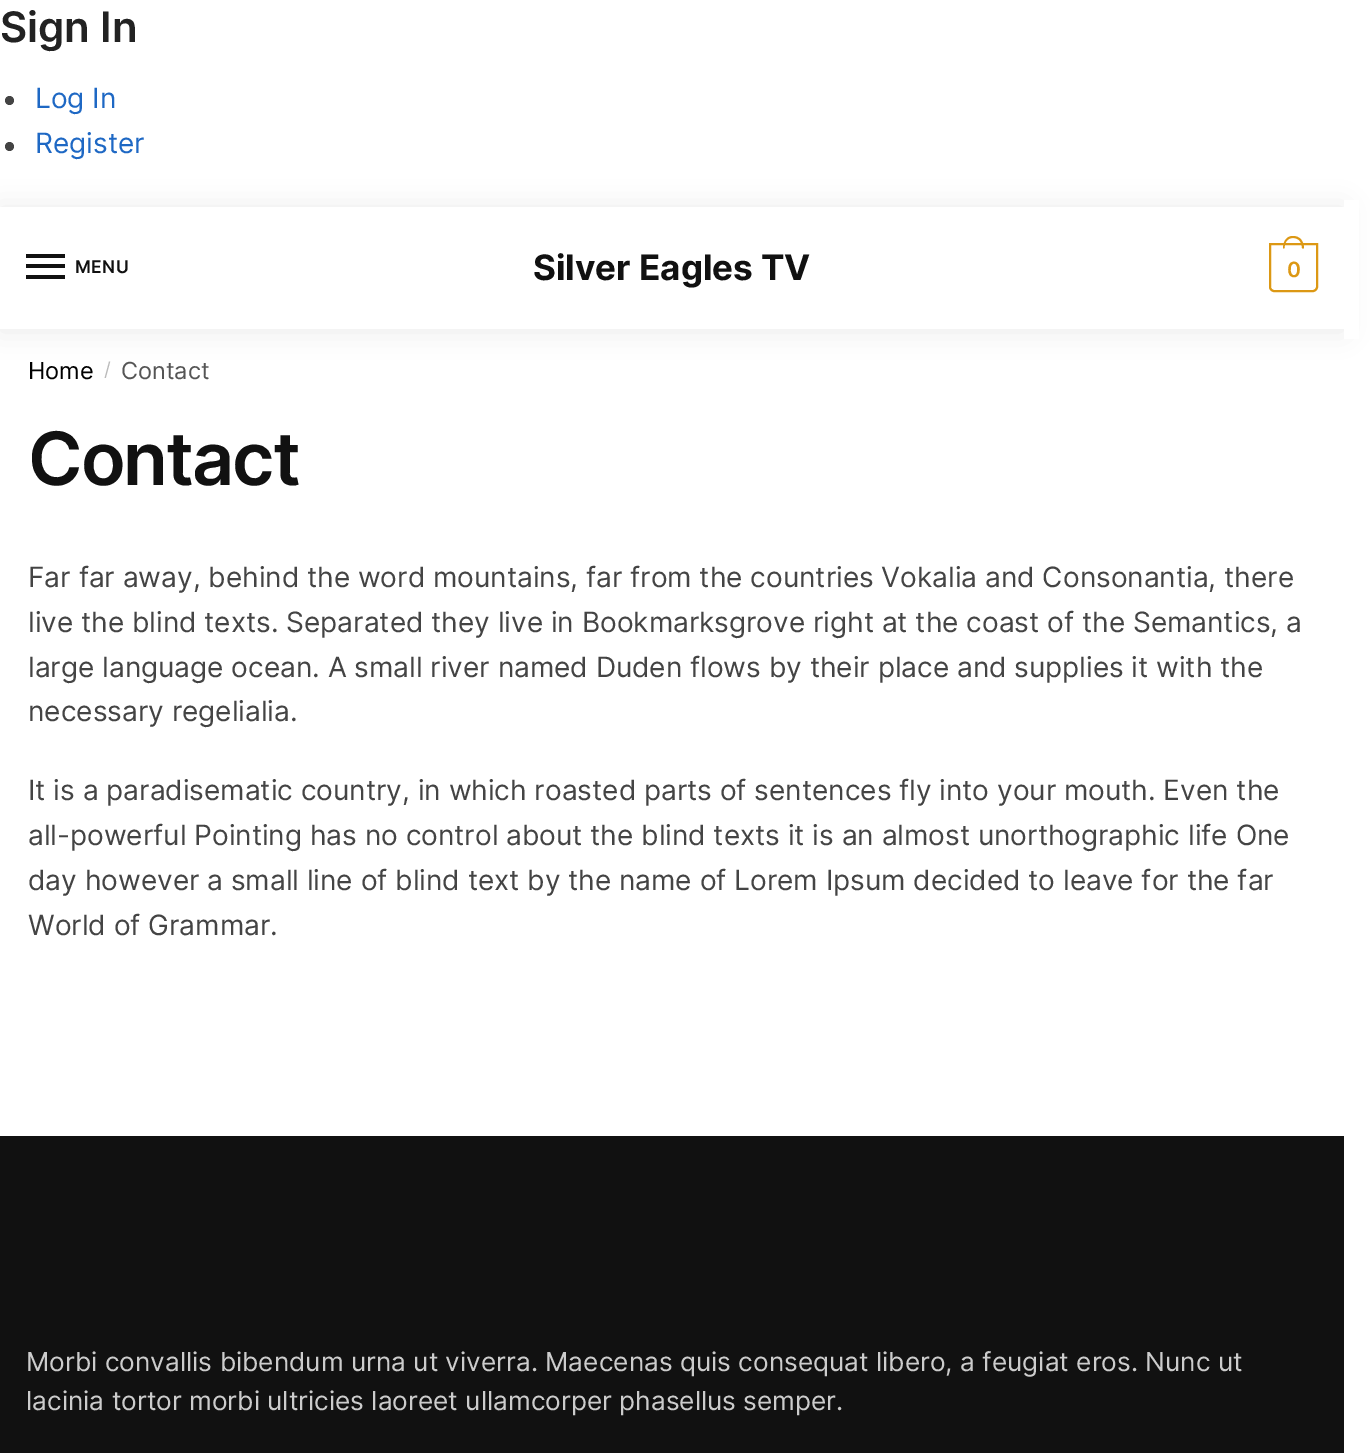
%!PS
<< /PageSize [1370 1453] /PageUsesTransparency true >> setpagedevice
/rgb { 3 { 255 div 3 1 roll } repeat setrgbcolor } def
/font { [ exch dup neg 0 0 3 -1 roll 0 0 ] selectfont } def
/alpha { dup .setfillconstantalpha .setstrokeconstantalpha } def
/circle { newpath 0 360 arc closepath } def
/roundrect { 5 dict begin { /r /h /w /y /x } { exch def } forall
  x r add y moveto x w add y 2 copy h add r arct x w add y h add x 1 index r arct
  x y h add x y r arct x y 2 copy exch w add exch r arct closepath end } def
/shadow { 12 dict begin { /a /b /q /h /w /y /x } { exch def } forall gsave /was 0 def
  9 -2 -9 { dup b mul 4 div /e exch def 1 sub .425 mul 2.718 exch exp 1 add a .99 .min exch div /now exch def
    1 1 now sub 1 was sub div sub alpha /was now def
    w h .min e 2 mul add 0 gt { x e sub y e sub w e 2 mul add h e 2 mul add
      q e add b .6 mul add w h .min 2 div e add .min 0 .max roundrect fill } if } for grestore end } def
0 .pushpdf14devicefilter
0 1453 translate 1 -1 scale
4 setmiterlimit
255 255 255 rgb
0 0 1370 1453 rectfill
68 68 68 rgb
9.5 100.5 4.5 circle fill
9.5 146.5 4.5 circle fill
gsave
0 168 moveto 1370 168 lineto 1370 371 lineto 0 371 lineto closepath 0 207 moveto 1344 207 lineto 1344 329 lineto 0 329 lineto closepath eoclip newpath
0 0 0 rgb
0 208 1344 123 0 13 0.08 shadow
grestore
[
  [26 254 39 4 17 17 17]
  [26 264 39 4 17 17 17]
  [26 275 39 4 17 17 17]
] { aload pop rgb rectfill } forall
220 152 20 rgb
2 setlinewidth
1270 244 moveto 1317 244 lineto 1317 287 lineto 1317 289 1315 291 1313 291 curveto 1274 291 lineto 1272 291 1270 289 1270 287 curveto closepath stroke
1293 236 moveto 1300.5 236 1304 242 1304 248.5 curveto 1283 248.5 lineto 1283 242 1286 236 1293 236 curveto closepath 1293 238 moveto 1299.5 238 1302 243 1302 248.5 curveto 1284.5 248.5 lineto 1284.5 243 1287 238 1293 238 curveto closepath eofill
255 255 255 rgb
1344 200 15 139 rectfill
17 17 17 rgb
0 1136 1344 317 rectfill
/Inter-SemiBold 42 font
34 34 34 rgb
0 42 moveto (Sign In) show
/Inter-Regular 28 font
30 104 196 rgb
35 108 moveto (Log In) show
35 153 moveto (Register) show
/Inter-SemiBold 17.5 font
17 17 17 rgb
75 273 moveto 0.5 0 (MENU) ashow
/Inter-Bold 35 font
533 280 moveto (Silver Eagles TV) show
/Inter-SemiBold 21 font
220 152 20 rgb
1287 277 moveto -1 0 (0) ashow
/Inter-Regular 23.5 font
0 0 0 rgb
28 379 moveto (Home) show
/Inter-Regular 19 font
187 187 187 rgb
104 376 moveto (/) show
/Inter-Regular 23.5 font
85 85 85 rgb
121 379 moveto (Contact) show
/Inter-SemiBold 73.5 font
17 17 17 rgb
28 485 moveto -2 0 (Contact) ashow
/Inter-Regular 28 font
68 68 68 rgb
[
  [(Far far away, behind the word mountains, far from the countries Vokalia and Consonantia, there) 28 587]
  [(live the blind texts. Separated they live in Bookmarksgrove right at the coast of the Semantics, a) 28 632]
  [(large language ocean. A small river named Duden flows by their place and supplies it with the) 28 677]
  [(necessary regelialia.) 28 721]
  [(It is a paradisematic country, in which roasted parts of sentences fly into your mouth. Even the) 28 800]
  [(all-powerful Pointing has no control about the blind texts it is an almost unorthographic life One) 28 845]
  [(day however a small line of blind text by the name of Lorem Ipsum decided to leave for the far) 28 890]
  [(World of Grammar.) 28 935]
] { aload pop moveto show } forall
/Inter-Regular 26.25 font
204 204 204 rgb
26 1371 moveto (Morbi convallis bibendum urna ut viverra. Maecenas quis consequat libero, a feugiat eros. Nunc ut) show
26 1410 moveto (lacinia tortor morbi ultricies laoreet ullamcorper phasellus semper.) show
.poppdf14devicefilter showpage
